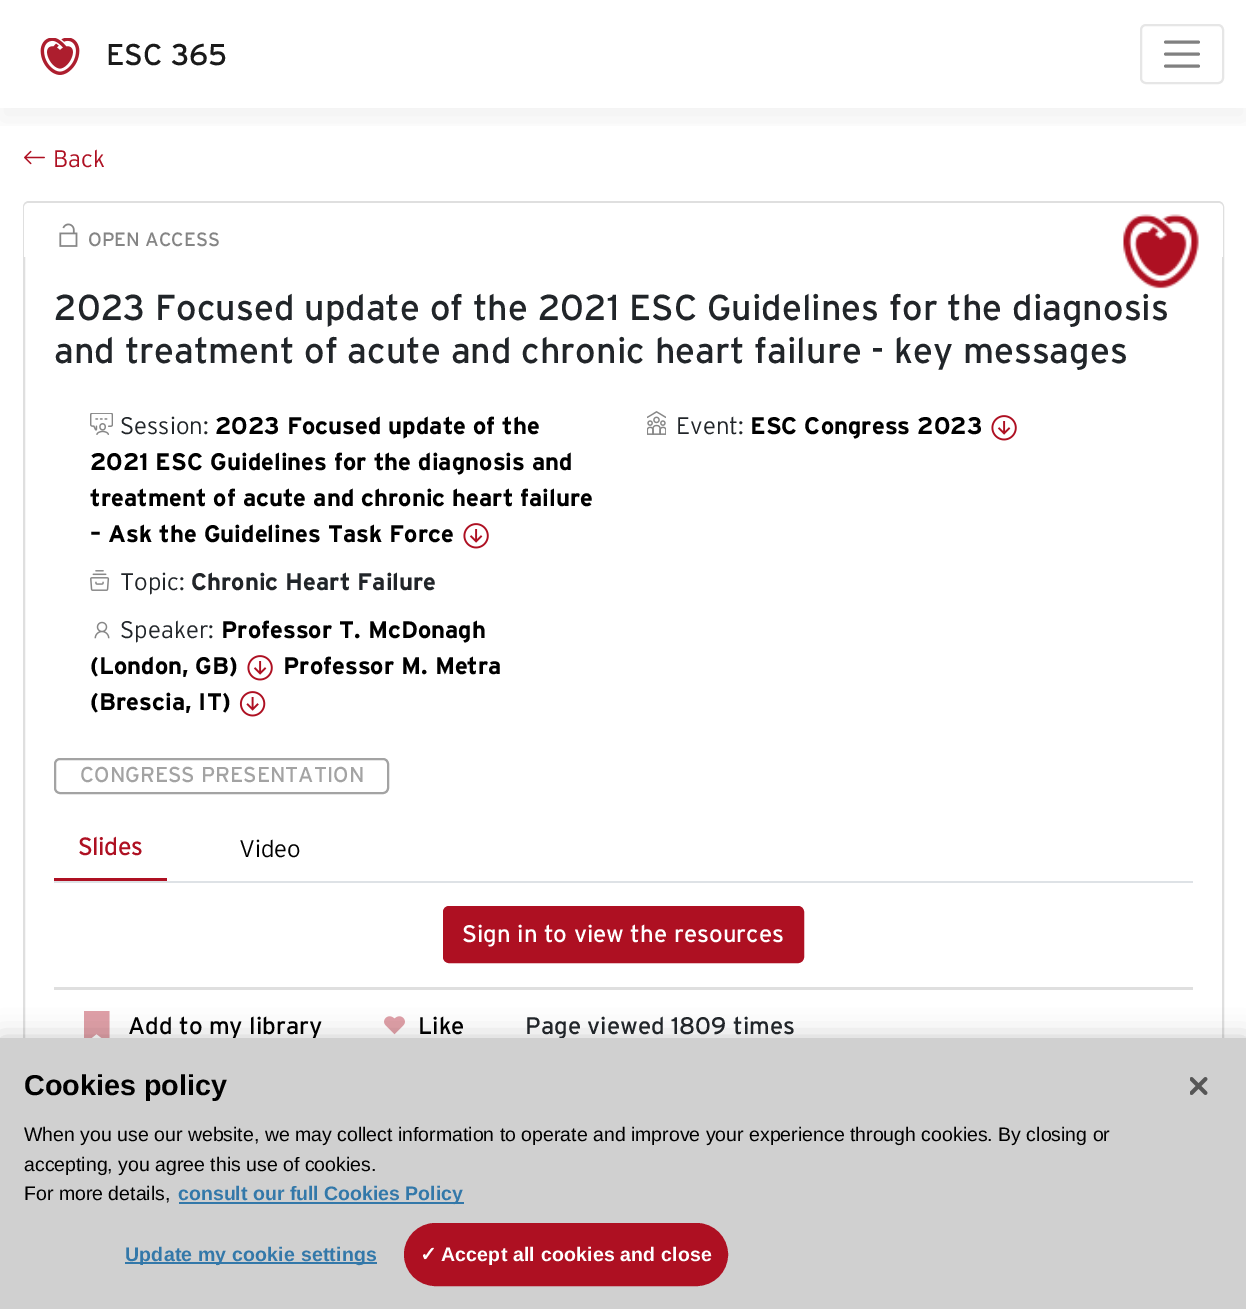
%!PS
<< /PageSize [1246 1309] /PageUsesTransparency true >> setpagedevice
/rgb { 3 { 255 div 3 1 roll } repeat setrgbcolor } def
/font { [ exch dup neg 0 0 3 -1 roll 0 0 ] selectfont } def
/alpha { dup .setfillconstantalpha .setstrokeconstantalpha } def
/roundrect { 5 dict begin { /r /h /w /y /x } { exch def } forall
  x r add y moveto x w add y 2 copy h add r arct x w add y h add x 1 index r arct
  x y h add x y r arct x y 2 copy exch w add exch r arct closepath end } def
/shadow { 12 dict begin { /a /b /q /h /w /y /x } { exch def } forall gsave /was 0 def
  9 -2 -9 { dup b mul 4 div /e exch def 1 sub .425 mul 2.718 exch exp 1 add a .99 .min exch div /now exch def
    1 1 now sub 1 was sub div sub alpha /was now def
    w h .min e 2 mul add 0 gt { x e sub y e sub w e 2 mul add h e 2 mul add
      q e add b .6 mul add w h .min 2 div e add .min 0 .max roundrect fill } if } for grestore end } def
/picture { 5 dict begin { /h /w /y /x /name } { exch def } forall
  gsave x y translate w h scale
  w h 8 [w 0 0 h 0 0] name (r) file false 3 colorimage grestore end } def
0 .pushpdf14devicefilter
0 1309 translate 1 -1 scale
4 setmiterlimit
255 255 255 rgb
0 0 1246 1309 rectfill
(img/2.rgb) 24 150 21 15 picture
gsave
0 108 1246 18 rectclip
0 0 0 rgb
0 12 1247 108 0 15 0.06 shadow
grestore
(img/1.rgb) 40 38 40 37 picture
230 230 230 rgb
2 setlinewidth
1141 25 82 58 5 roundrect stroke
128 128 128 rgb
3 setlinewidth
1 setlinecap
1165.5 42 moveto 1198.5 42 lineto 1165.5 54 moveto 1198.5 54 lineto 1165.5 66 moveto 1198.5 66 lineto stroke
223 223 223 rgb
2 setlinewidth
0 setlinecap
24 202 1199 897 5 roundrect stroke
255 255 255 rgb
29 203 moveto 1218 203 lineto 1221 203 1223 205 1223 208 curveto 1223 257 lineto 24 257 lineto 24 208 lineto 24 205 26 203 29 203 curveto closepath fill
(img/3.rgb) 59 223 19 24 picture
(img/4.rgb) 1123 214 76 75 picture
(img/5.rgb) 90 413 23 22 picture
(img/6.rgb) 463 523 26 26 picture
(img/7.rgb) 90 570 20 21 picture
(img/6.rgb) 247 655 26 26 picture
(img/8.rgb) 94 621 16 18 picture
(img/9.rgb) 239 691 27 26 picture
(img/10.rgb) 647 411 19 24 picture
(img/6.rgb) 991 415 26 26 picture
163 163 163 rgb
55 759 333 34 5 roundrect stroke
222 226 230 rgb
54 881 1139 2 rectfill
174 16 34 rgb
54 878 113 3 rectfill
444 907 359 55 5 roundrect gsave fill grestore
stroke
223 223 223 rgb
54 987 1139 3 rectfill
223 159 167 rgb
84 1011 moveto 84 1044 lineto 96.5 1034 lineto 109.5 1044 lineto 109.5 1011 lineto closepath fill
(img/11.rgb) 384 1016 21 19 picture
0 0 0 rgb
0 1038 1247 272 0 13.5 0.2 shadow
/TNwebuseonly-Regular 30 font
26 26 26 rgb
106 65 moveto (ESC 365) show
/TNwebuseonly-Light 24 font
174 16 34 rgb
53 167 moveto (Back) show
/TNwebuseonly-Regular 19.25 font
133 133 133 rgb
88 246 moveto (OPEN ACCESS) show
/TNwebuseonly-Regular 36 font
33 37 41 rgb
54 320 moveto (2023 Focused update of the 2021 ESC Guidelines for the diagnosis) show
54 363 moveto (and treatment of acute and chronic heart failure - key messages) show
/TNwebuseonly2-Bold 24 font
0 0 0 rgb
[
  [(2023 Focused update of the) 215 434]
  [(2021 ESC Guidelines for the diagnosis and) 90 470]
  [(treatment of acute and chronic heart failure) 90 506]
  [(– Ask the Guidelines Task Force) 90 542]
] { aload pop moveto show } forall
/TNwebuseonly-Light 24 font
33 37 41 rgb
120 434 moveto (Session:) show
120 590 moveto (Topic:) show
/TNwebuseonly2-Bold 24 font
191 590 moveto (Chronic Heart Failure) show
0 0 0 rgb
221 638 moveto (Professor T. McDonagh) show
90 674 moveto (\(London, GB\)) show
/TNwebuseonly-Light 24 font
33 37 41 rgb
120 638 moveto (Speaker:) show
/TNwebuseonly2-Bold 24 font
0 0 0 rgb
283 674 moveto (Professor M. Metra) show
90 710 moveto (\(Brescia, IT\)) show
/TNwebuseonly-Light 24 font
33 37 41 rgb
676 434 moveto (Event:) show
/TNwebuseonly2-Bold 24 font
0 0 0 rgb
750 434 moveto (ESC Congress 2023) show
/TNwebuseonly-Regular 21.6 font
163 163 163 rgb
80 782 moveto (CONGRESS PRESENTATION) show
/TNwebuseonly-Bold 24 font
174 16 34 rgb
78 855 moveto (Slides) show
/TNwebuseonly-Light 24 font
0 0 0 rgb
239 857 moveto (Video) show
/TNwebuseonly-Regular 24 font
255 255 255 rgb
462 942 moveto (Sign in to view the resources) show
0 0 0 rgb
128 1034 moveto (Add to my library) show
418 1034 moveto (Like) show
33 37 41 rgb
525 1034 moveto (Page viewed 1809 times) show
208 208 208 rgb
0 1038 1246 271 rectfill
/LiberationSans-Bold 28.75 font
0 0 0 rgb
24 1095 moveto (Cookies policy) show
/LiberationSans-Regular 19.5 font
[
  [(When you use our website, we may collect information to operate and improve your experience through cookies. By closing or) 24 1141]
  [(accepting, you agree this use of cookies.) 24 1171]
  [(For more details,) 24 1200]
] { aload pop moveto show } forall
51 120 169 rgb
179 1202 285 2 rectfill
/LiberationSans-Bold 19.5 font
178 1200 moveto (consult our full Cookies Policy) show
125 1262 252 2 rectfill
125 1261 moveto 0.2 0 (Update my cookie settings) ashow
174 16 34 rgb
405 1224 322 61 30.5 roundrect gsave fill grestore
stroke
/DejaVuSans-Bold 20 font
255 255 255 rgb
420 1261 moveto 0.2 0 (✓) ashow
/LiberationSans-Bold 19.5 font
441 1261 moveto 0.2 0 (Accept all cookies and close) ashow
(img/12.rgb) 1190 1077 18 18 picture
.poppdf14devicefilter showpage
